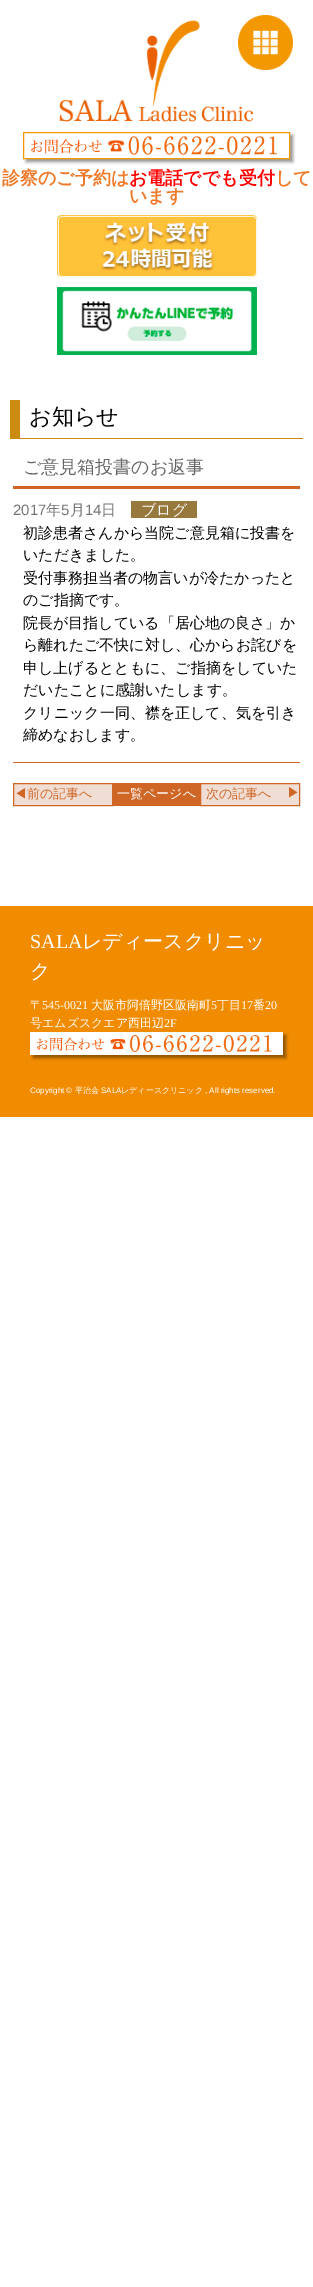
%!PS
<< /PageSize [313 2287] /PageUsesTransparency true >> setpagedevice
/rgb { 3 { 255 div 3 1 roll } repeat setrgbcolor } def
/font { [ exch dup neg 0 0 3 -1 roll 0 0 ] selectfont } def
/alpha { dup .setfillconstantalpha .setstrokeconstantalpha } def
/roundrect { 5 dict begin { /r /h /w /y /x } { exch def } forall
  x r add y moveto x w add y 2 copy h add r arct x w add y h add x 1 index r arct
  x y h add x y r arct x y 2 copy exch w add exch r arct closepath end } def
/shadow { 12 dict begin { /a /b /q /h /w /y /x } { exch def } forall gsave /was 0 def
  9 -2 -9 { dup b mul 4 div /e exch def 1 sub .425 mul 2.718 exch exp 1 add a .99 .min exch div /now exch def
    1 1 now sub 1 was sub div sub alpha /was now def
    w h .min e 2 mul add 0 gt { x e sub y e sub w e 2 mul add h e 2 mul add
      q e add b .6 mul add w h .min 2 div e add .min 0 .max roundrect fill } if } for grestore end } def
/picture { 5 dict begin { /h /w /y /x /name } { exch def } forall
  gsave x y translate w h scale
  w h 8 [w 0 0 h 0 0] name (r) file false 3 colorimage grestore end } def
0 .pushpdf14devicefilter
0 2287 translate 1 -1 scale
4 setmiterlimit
255 255 255 rgb
0 0 313 2287 rectfill
(img/1.rgb) 59 20 195 102 picture
(img/2.rgb) 238 15 55 55 picture
gsave
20 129 moveto 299 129 lineto 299 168 lineto 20 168 lineto closepath 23 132 moveto 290 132 lineto 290 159 lineto 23 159 lineto closepath eoclip newpath
0 0 0 rgb
26 135 267 27 0 1.5 0.4 shadow
grestore
243 152 0 rgb
23.5 132.5 266 26 rectstroke
(img/3.rgb) 30 136 247 19 picture
(img/4.rgb) 57 215 200 62 picture
(img/5.rgb) 57 287 200 68 picture
[
  [20 438 283 1 203 139 16]
  [10 400 10 39 203 139 16]
  [13 762 287 1 207 102 38]
  [13 486 287 3 207 102 38]
  [131 501 66 17 151 120 61]
] { aload pop rgb rectfill } forall
240 222 213 rgb
13.5 783.5 moveto 112.5 783.5 lineto 112.5 805.5 lineto 13.5 805.5 lineto closepath gsave fill grestore
207 102 38 rgb
stroke
113 783 87 23 rectfill
240 222 213 rgb
200.5 783.5 moveto 299.5 783.5 lineto 299.5 805.5 lineto 200.5 805.5 lineto closepath gsave fill grestore
207 102 38 rgb
stroke
241 140 0 rgb
0 906 313 211 rectfill
0 0 0 rgb
33 1035 253 23 0 1.5 0.4 shadow
(img/6.rgb) 30 1032 253 23 picture
/WenQuanYiZenHei-Bold 18 font
240 121 41 rgb
2 184 moveto (診察のご予約は) show
255 0 0 rgb
129 184 moveto (お電話ででも受付) show
240 121 41 rgb
275 184 moveto (して) show
129 202 moveto (います) show
/WenQuanYiZenHei-Medium 22 font
0 0 0 rgb
29 424 moveto (お知らせ) show
/WenQuanYiZenHei-Medium 18 font
102 102 102 rgb
23 473 moveto (ご意見箱投書のお返事) show
/LiberationSans-Regular 15 font
118 118 118 rgb
13 515 moveto (2017) show
/WenQuanYiZenHei-Medium 15 font
46 515 moveto (年) show
/LiberationSans-Regular 15 font
61 515 moveto (5) show
/WenQuanYiZenHei-Medium 15 font
70 515 moveto (月) show
/LiberationSans-Regular 15 font
85 515 moveto (14) show
/WenQuanYiZenHei-Medium 15 font
101 515 moveto (日) show
255 255 255 rgb
141 515 moveto (ブログ) show
0 0 0 rgb
[
  [(初診患者さんから当院ご意見箱に投書を) 23 538]
  [(いただきました。) 23 560]
  [(受付事務担当者の物言いが冷たかったと) 23 583]
  [(のご指摘です。) 23 605]
  [(院長が目指している「居心地の良さ」か) 23 628]
  [(ら離れたご不快に対し、心からお詫びを) 23 650]
  [(申し上げるとともに、ご指摘をしていた) 23 673]
  [(だいたことに感謝いたします。) 23 695]
  [(クリニック一同、襟を正して、気を引き) 23 718]
  [(締めなおします。) 23 740]
] { aload pop moveto show } forall
/WenQuanYiZenHei-Medium 13 font
207 102 38 rgb
14 798 moveto (◀前の記事へ) show
255 255 255 rgb
117 798 moveto (一覧ページへ) show
207 102 38 rgb
206 798 moveto (次の記事へ) show
287 797 moveto (▶) show
/LiberationSerif-Regular 20 font
255 255 255 rgb
30 948 moveto (SALA) show
/WenQuanYiZenHei-Medium 20 font
82 948 moveto (レディースクリニッ) show
30 978 moveto (ク) show
/WenQuanYiZenHei-Medium 12 font
30 1009 moveto (〒) show
/LiberationSerif-Regular 12 font
42 1009 moveto (545-0021) show
/WenQuanYiZenHei-Medium 12 font
91 1009 moveto (大阪市阿倍野区阪南町) show
/LiberationSerif-Regular 12 font
211 1009 moveto (5) show
/WenQuanYiZenHei-Medium 12 font
217 1009 moveto (丁目) show
/LiberationSerif-Regular 12 font
241 1009 moveto (17) show
/WenQuanYiZenHei-Medium 12 font
253 1009 moveto (番) show
/LiberationSerif-Regular 12 font
265 1009 moveto (20) show
/WenQuanYiZenHei-Medium 12 font
30 1027 moveto (号エムズスクエア西田辺) show
/LiberationSerif-Regular 12 font
164 1027 moveto (2F) show
/LiberationSans-Regular 8 font
30 1093 moveto (Copyright ©) show
/WenQuanYiZenHei-Medium 8 font
75 1093 moveto (平治会) show
/LiberationSans-Regular 8 font
101 1093 moveto (SALA) show
/WenQuanYiZenHei-Medium 8 font
121 1093 moveto (レディースクリニック) show
/LiberationSans-Regular 8 font
205 1093 moveto (, All rights reserved.) show
.poppdf14devicefilter showpage
